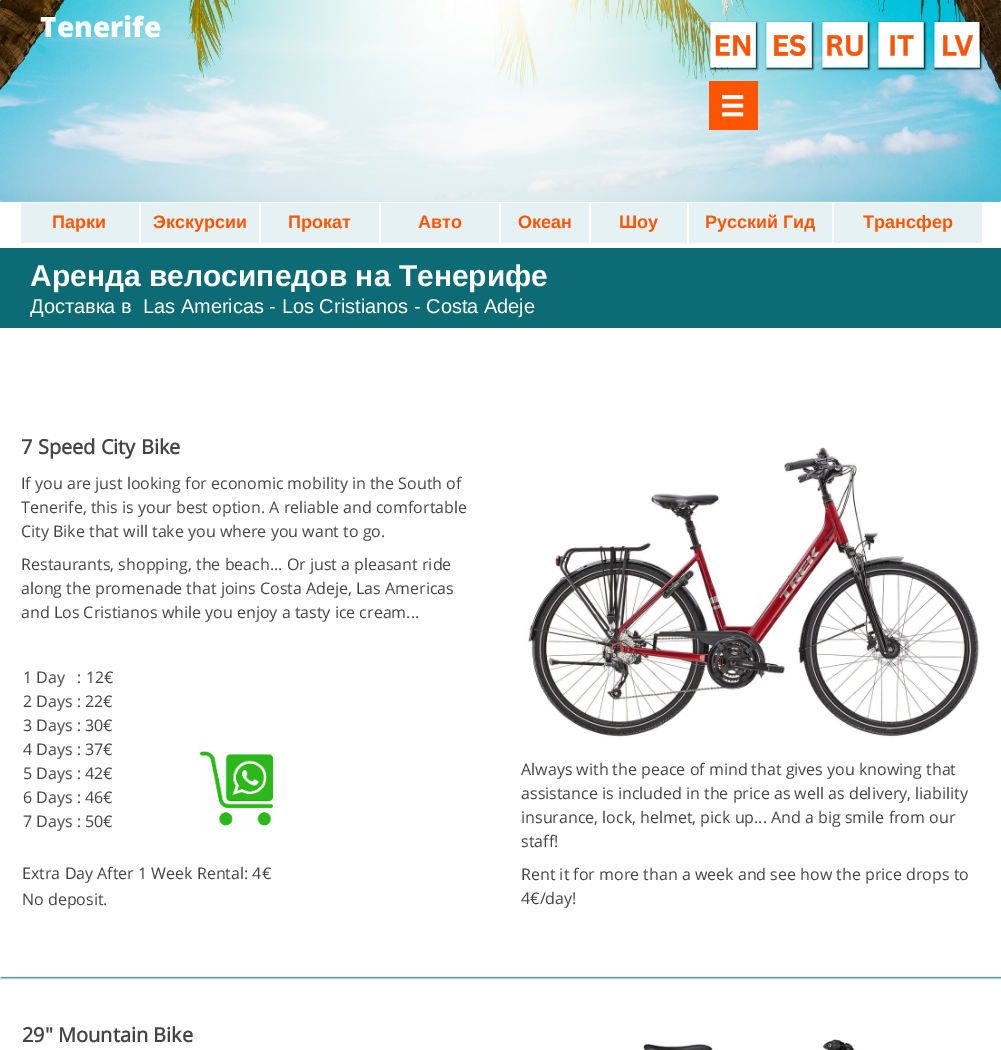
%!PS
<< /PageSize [1001 1050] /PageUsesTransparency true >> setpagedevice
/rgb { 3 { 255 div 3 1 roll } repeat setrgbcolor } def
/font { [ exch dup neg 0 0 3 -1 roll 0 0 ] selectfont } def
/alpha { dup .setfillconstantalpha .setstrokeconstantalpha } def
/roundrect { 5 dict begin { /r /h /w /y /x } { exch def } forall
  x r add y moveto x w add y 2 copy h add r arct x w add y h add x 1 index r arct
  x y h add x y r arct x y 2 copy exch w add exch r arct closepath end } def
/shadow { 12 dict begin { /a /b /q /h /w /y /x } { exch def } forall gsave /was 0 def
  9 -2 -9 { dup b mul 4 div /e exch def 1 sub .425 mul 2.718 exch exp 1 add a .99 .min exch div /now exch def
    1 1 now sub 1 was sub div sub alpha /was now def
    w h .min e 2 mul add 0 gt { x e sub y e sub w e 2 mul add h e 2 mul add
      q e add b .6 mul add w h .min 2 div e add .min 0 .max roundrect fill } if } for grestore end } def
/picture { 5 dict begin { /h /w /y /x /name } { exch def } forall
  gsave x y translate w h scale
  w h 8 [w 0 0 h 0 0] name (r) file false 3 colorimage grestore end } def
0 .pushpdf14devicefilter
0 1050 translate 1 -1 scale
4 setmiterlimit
255 255 255 rgb
0 0 1001 1050 rectfill
(img/1.rgb) 0 0 1001 202 picture
1 202 moveto 2 203 lineto 1001 203 lineto 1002 203 lineto 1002 135 lineto 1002 2 lineto 1001 1 lineto 1001 201 lineto 1001 202 1001 202 1000 202 curveto closepath fill
(img/2.rgb) 710 22 46 45 picture
gsave
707 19 moveto 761 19 lineto 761 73 lineto 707 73 lineto closepath 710 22 moveto 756 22 lineto 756 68 lineto 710 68 lineto closepath eoclip newpath
0 0 0 rgb
711 23 46 46 0 1 1 shadow
grestore
(img/3.rgb) 766 22 46 45 picture
gsave
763 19 moveto 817 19 lineto 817 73 lineto 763 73 lineto closepath 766 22 moveto 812 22 lineto 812 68 lineto 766 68 lineto closepath eoclip newpath
0 0 0 rgb
767 23 46 46 0 1 1 shadow
grestore
(img/4.rgb) 822 22 46 45 picture
gsave
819 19 moveto 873 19 lineto 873 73 lineto 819 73 lineto closepath 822 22 moveto 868 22 lineto 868 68 lineto 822 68 lineto closepath eoclip newpath
0 0 0 rgb
823 23 46 46 0 1 1 shadow
grestore
(img/5.rgb) 878 22 46 45 picture
gsave
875 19 moveto 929 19 lineto 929 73 lineto 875 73 lineto closepath 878 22 moveto 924 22 lineto 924 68 lineto 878 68 lineto closepath eoclip newpath
0 0 0 rgb
879 23 46 46 0 1 1 shadow
grestore
(img/6.rgb) 934 22 46 45 picture
gsave
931 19 moveto 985 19 lineto 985 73 lineto 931 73 lineto closepath 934 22 moveto 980 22 lineto 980 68 lineto 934 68 lineto closepath eoclip newpath
0 0 0 rgb
935 23 46 46 0 1 1 shadow
grestore
255 85 0 rgb
709 81 49 49 rectfill
(img/7.rgb) 722 95 22 22 picture
[
  [21 203 118 40 230 241 243]
  [141 203 118 40 230 241 243]
  [261 203 118 40 230 241 243]
  [381 203 118 40 230 241 243]
  [501 203 88 40 230 241 243]
  [591 203 96 40 230 241 243]
  [689 203 143 40 230 241 243]
  [834 203 148 40 230 241 243]
  [0 248 1001 80 12 107 116]
] { aload pop rgb rectfill } forall
gsave
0 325 moveto 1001 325 lineto 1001 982 lineto 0 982 lineto closepath 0 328 moveto 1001 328 lineto 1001 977 lineto 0 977 lineto closepath eoclip newpath
1 329 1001 649 0 1 1 shadow
grestore
(img/8.rgb) 527 424 453 315 picture
(img/9.rgb) 199 751 75 75 picture
gsave
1 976 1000 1 rectclip
1 978 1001 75 0 1 1 shadow
grestore
(img/10.rgb) 527 986 453 64 picture
/OpenSans-ExtraBold 28 font
255 255 255 rgb
40 37 moveto (Tenerife) show
/LiberationSans-Bold 18 font
255 85 0 rgb
[
  [(Парки) 52 228]
  [(Экскурсии) 153 228]
  [(Прокат) 288 228]
  [(Авто) 418 228]
  [(Океан) 518 228]
  [(Шоу) 619 228]
  [(Русский Гид) 705 228]
  [(Трансфер) 863 228]
] { aload pop moveto show } forall
/LiberationSans-Bold 30 font
255 255 255 rgb
30 286 moveto (Аренда велосипедов на Тенерифе) show
/LiberationSans-Regular 20 font
30 313 moveto (Доставка в  Las Americas - Los Cristianos - Costa Adeje) show
/OpenSans-Bold 20 font
68 68 68 rgb
21 454 moveto (7 Speed City Bike) show
/OpenSans-Regular 16 font
[
  [(If you are just looking for economic mobility in the South of) 21 489]
  [(Tenerife, this is your best option. A reliable and comfortable) 21 513]
  [(City Bike that will take you where you want to go.) 21 537]
  [(Restaurants, shopping, the beach... Or just a pleasant ride) 21 570]
  [(along the promenade that joins Costa Adeje, Las Americas) 21 594]
  [(and Los Cristianos while you enjoy a tasty ice cream...) 21 618]
  [(1 Day   : 12€) 23 683]
  [(2 Days : 22€) 23 707]
  [(3 Days : 30€) 23 731]
  [(4 Days : 37€) 23 755]
  [(5 Days : 42€) 23 779]
  [(6 Days : 46€) 23 803]
  [(7 Days : 50€) 23 827]
  [(Always with the peace of mind that gives you knowing that) 521 775]
  [(assistance is included in the price as well as delivery, liability) 521 799]
  [(insurance, lock, helmet, pick up... And a big smile from our) 521 823]
  [(staff!) 521 847]
  [(Rent it for more than a week and see how the price drops to) 521 880]
  [(4€/day!) 521 904]
  [(Extra Day After 1 Week Rental: 4€) 22 879]
  [(No deposit.) 22 905]
] { aload pop moveto show } forall
/OpenSans-Bold 20 font
22 1042 moveto (29" Mountain Bike) show
.poppdf14devicefilter showpage
